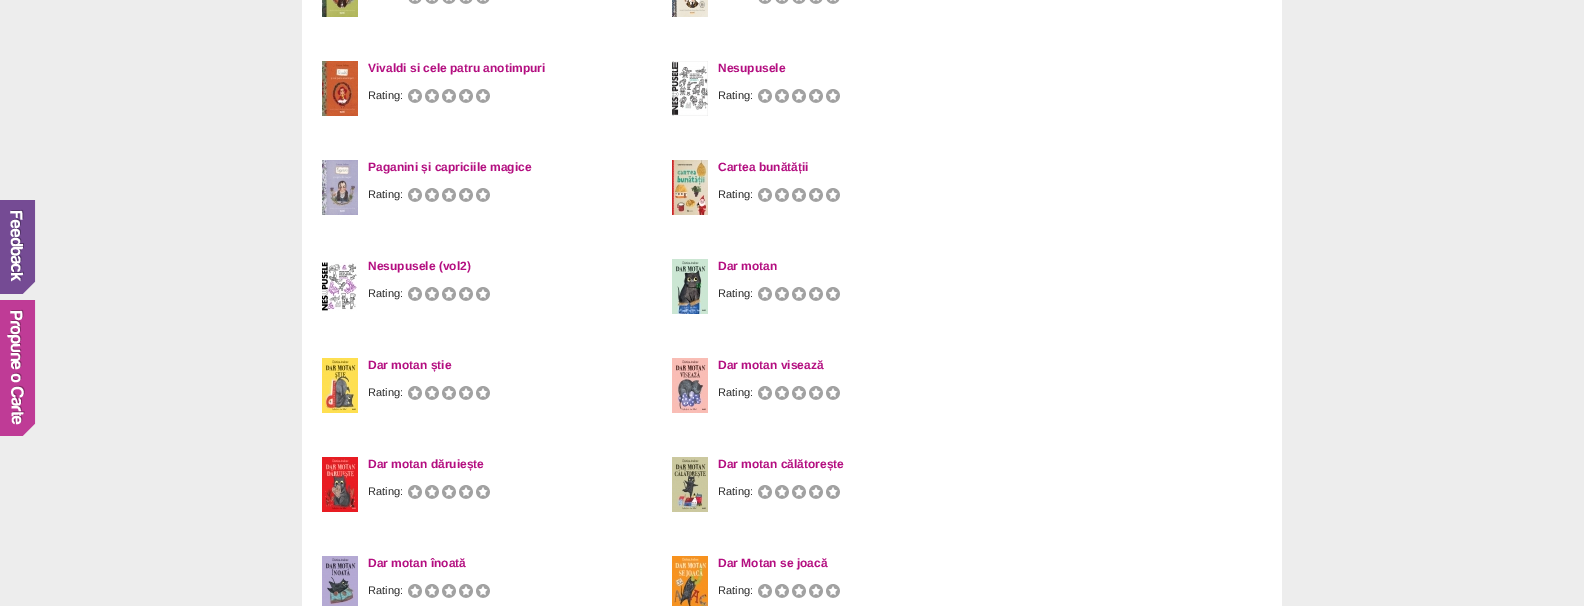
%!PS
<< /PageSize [1584 606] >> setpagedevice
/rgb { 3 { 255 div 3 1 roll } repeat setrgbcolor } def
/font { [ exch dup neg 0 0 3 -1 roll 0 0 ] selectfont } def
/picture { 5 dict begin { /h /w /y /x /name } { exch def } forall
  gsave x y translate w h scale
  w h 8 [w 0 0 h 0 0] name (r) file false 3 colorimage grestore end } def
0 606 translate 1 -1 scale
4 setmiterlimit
237 237 237 rgb
0 0 1584 606 rectfill
(img/1.rgb) 0 200 36 94 picture
255 255 255 rgb
302 0 980 606 rectfill
(img/2.rgb) 322 0 36 17 picture
(img/3.rgb) 408 0 14 4 picture
(img/3.rgb) 425 0 14 4 picture
(img/3.rgb) 442 0 14 4 picture
(img/3.rgb) 459 0 14 4 picture
(img/3.rgb) 476 0 14 4 picture
(img/4.rgb) 672 0 36 17 picture
(img/3.rgb) 758 0 14 4 picture
(img/3.rgb) 775 0 14 4 picture
(img/3.rgb) 792 0 14 4 picture
(img/3.rgb) 809 0 14 4 picture
(img/3.rgb) 826 0 14 4 picture
(img/5.rgb) 322 61 36 55 picture
(img/6.rgb) 408 89 14 14 picture
(img/6.rgb) 425 89 14 14 picture
(img/6.rgb) 442 89 14 14 picture
(img/6.rgb) 459 89 14 14 picture
(img/6.rgb) 476 89 14 14 picture
(img/7.rgb) 672 61 36 55 picture
(img/6.rgb) 758 89 14 14 picture
(img/6.rgb) 775 89 14 14 picture
(img/6.rgb) 792 89 14 14 picture
(img/6.rgb) 809 89 14 14 picture
(img/6.rgb) 826 89 14 14 picture
(img/8.rgb) 322 160 36 55 picture
(img/6.rgb) 408 188 14 14 picture
(img/6.rgb) 425 188 14 14 picture
(img/6.rgb) 442 188 14 14 picture
(img/6.rgb) 459 188 14 14 picture
(img/6.rgb) 476 188 14 14 picture
(img/9.rgb) 672 160 36 55 picture
(img/6.rgb) 758 188 14 14 picture
(img/6.rgb) 775 188 14 14 picture
(img/6.rgb) 792 188 14 14 picture
(img/6.rgb) 809 188 14 14 picture
(img/6.rgb) 826 188 14 14 picture
(img/10.rgb) 322 262 35 49 picture
(img/6.rgb) 408 287 14 14 picture
(img/6.rgb) 425 287 14 14 picture
(img/6.rgb) 442 287 14 14 picture
(img/6.rgb) 459 287 14 14 picture
(img/6.rgb) 476 287 14 14 picture
(img/11.rgb) 672 259 36 55 picture
(img/6.rgb) 758 287 14 14 picture
(img/6.rgb) 775 287 14 14 picture
(img/6.rgb) 792 287 14 14 picture
(img/6.rgb) 809 287 14 14 picture
(img/6.rgb) 826 287 14 14 picture
(img/12.rgb) 322 358 36 55 picture
(img/6.rgb) 408 386 14 14 picture
(img/6.rgb) 425 386 14 14 picture
(img/6.rgb) 442 386 14 14 picture
(img/6.rgb) 459 386 14 14 picture
(img/6.rgb) 476 386 14 14 picture
(img/13.rgb) 672 358 36 55 picture
(img/6.rgb) 758 386 14 14 picture
(img/6.rgb) 775 386 14 14 picture
(img/6.rgb) 792 386 14 14 picture
(img/6.rgb) 809 386 14 14 picture
(img/6.rgb) 826 386 14 14 picture
(img/14.rgb) 322 457 36 55 picture
(img/6.rgb) 408 485 14 14 picture
(img/6.rgb) 425 485 14 14 picture
(img/6.rgb) 442 485 14 14 picture
(img/6.rgb) 459 485 14 14 picture
(img/6.rgb) 476 485 14 14 picture
(img/15.rgb) 672 457 36 55 picture
(img/6.rgb) 758 485 14 14 picture
(img/6.rgb) 775 485 14 14 picture
(img/6.rgb) 792 485 14 14 picture
(img/6.rgb) 809 485 14 14 picture
(img/6.rgb) 826 485 14 14 picture
(img/16.rgb) 322 556 36 50 picture
(img/6.rgb) 408 584 14 14 picture
(img/6.rgb) 425 584 14 14 picture
(img/6.rgb) 442 584 14 14 picture
(img/6.rgb) 459 584 14 14 picture
(img/6.rgb) 476 584 14 14 picture
(img/17.rgb) 672 556 36 50 picture
(img/6.rgb) 758 584 14 14 picture
(img/6.rgb) 775 584 14 14 picture
(img/6.rgb) 792 584 14 14 picture
(img/6.rgb) 809 584 14 14 picture
(img/6.rgb) 826 584 14 14 picture
(img/18.rgb) 0 300 36 136 picture
/LiberationSans-Bold 12 font
180 14 128 rgb
368 72 moveto (Vivaldi si cele patru anotimpuri) show
/LiberationSans-Regular 11 font
45 45 45 rgb
368 99 moveto (Rating:) show
/LiberationSans-Bold 12 font
180 14 128 rgb
718 72 moveto (Nesupusele) show
/LiberationSans-Regular 11 font
45 45 45 rgb
718 99 moveto (Rating:) show
/LiberationSans-Bold 12 font
180 14 128 rgb
368 171 moveto (Paganini și capriciile magice) show
/LiberationSans-Regular 11 font
45 45 45 rgb
368 198 moveto (Rating:) show
/LiberationSans-Bold 12 font
180 14 128 rgb
718 171 moveto (Cartea bunătății) show
/LiberationSans-Regular 11 font
45 45 45 rgb
718 198 moveto (Rating:) show
/LiberationSans-Bold 12 font
180 14 128 rgb
368 270 moveto (Nesupusele \(vol2\)) show
/LiberationSans-Regular 11 font
45 45 45 rgb
368 297 moveto (Rating:) show
/LiberationSans-Bold 12 font
180 14 128 rgb
718 270 moveto (Dar motan) show
/LiberationSans-Regular 11 font
45 45 45 rgb
718 297 moveto (Rating:) show
/LiberationSans-Bold 12 font
180 14 128 rgb
368 369 moveto (Dar motan știe) show
/LiberationSans-Regular 11 font
45 45 45 rgb
368 396 moveto (Rating:) show
/LiberationSans-Bold 12 font
180 14 128 rgb
718 369 moveto (Dar motan visează) show
/LiberationSans-Regular 11 font
45 45 45 rgb
718 396 moveto (Rating:) show
/LiberationSans-Bold 12 font
180 14 128 rgb
368 468 moveto (Dar motan dăruiește) show
/LiberationSans-Regular 11 font
45 45 45 rgb
368 495 moveto (Rating:) show
/LiberationSans-Bold 12 font
180 14 128 rgb
718 468 moveto (Dar motan călătorește) show
/LiberationSans-Regular 11 font
45 45 45 rgb
718 495 moveto (Rating:) show
/LiberationSans-Bold 12 font
180 14 128 rgb
368 567 moveto (Dar motan înoată) show
/LiberationSans-Regular 11 font
45 45 45 rgb
368 594 moveto (Rating:) show
/LiberationSans-Bold 12 font
180 14 128 rgb
718 567 moveto (Dar Motan se joacă) show
/LiberationSans-Regular 11 font
45 45 45 rgb
718 594 moveto (Rating:) show
showpage
